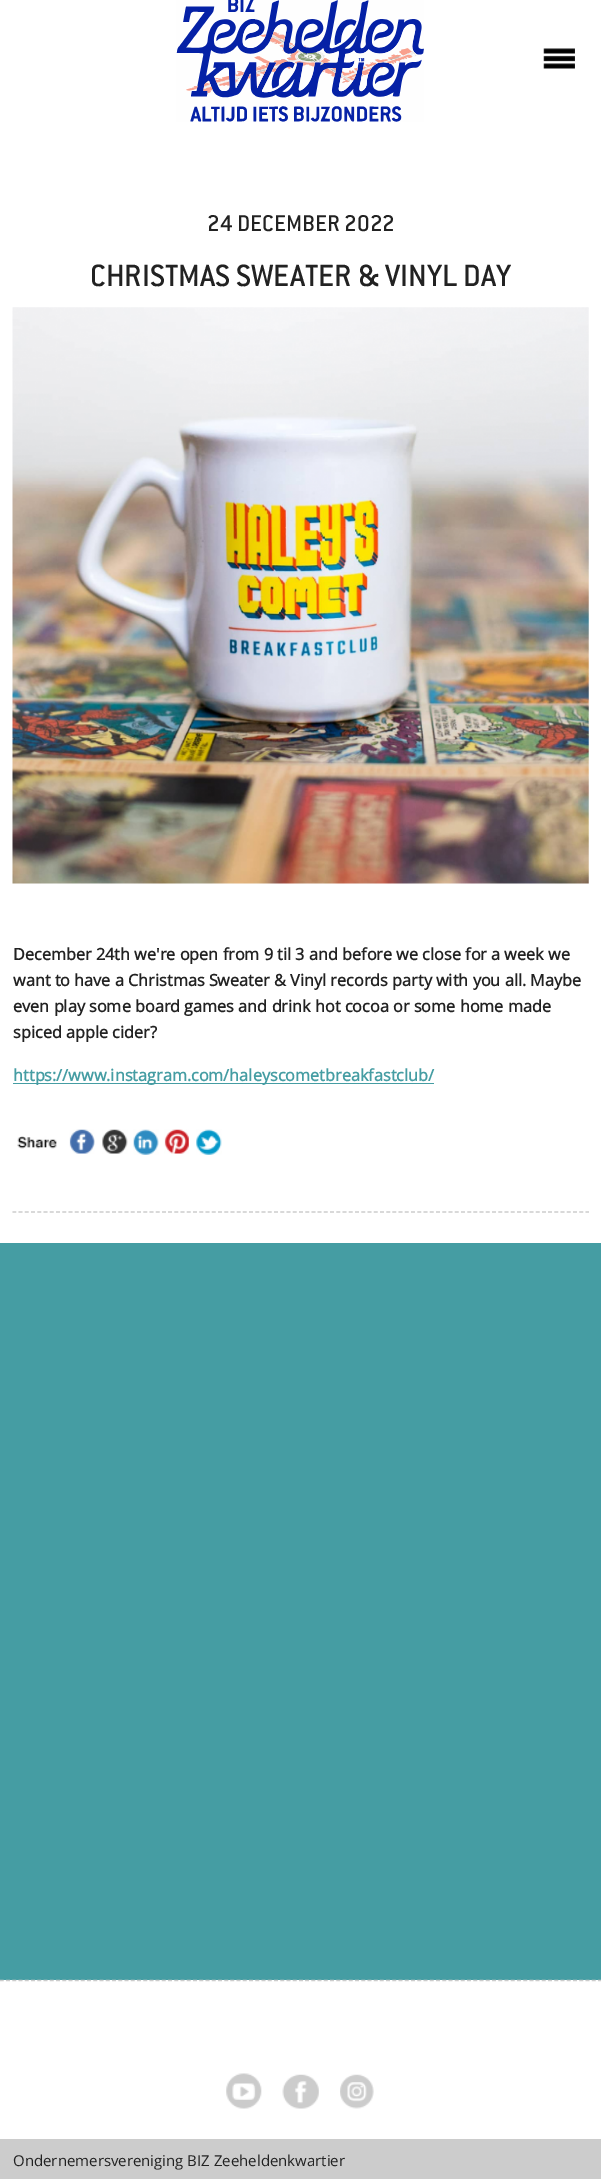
%!PS
<< /PageSize [601 2179] >> setpagedevice
/rgb { 3 { 255 div 3 1 roll } repeat setrgbcolor } def
/font { [ exch dup neg 0 0 3 -1 roll 0 0 ] selectfont } def
/picture { 5 dict begin { /h /w /y /x /name } { exch def } forall
  gsave x y translate w h scale
  w h 8 [w 0 0 h 0 0] name (r) file false 3 colorimage grestore end } def
0 2179 translate 1 -1 scale
4 setmiterlimit
69 157 163 rgb
0 0 601 2179 rectfill
255 255 255 rgb
0 0 601 1243 rectfill
(img/1.rgb) 176 0 248 122 picture
(img/2.rgb) 543 48 32 21 picture
(img/3.rgb) 12 307 577 577 picture
69 157 163 rgb
13 1083 421 1 rectfill
(img/4.rgb) 17 1136 40 13 picture
(img/5.rgb) 69 1129 26 25 picture
(img/6.rgb) 102 1129 26 25 picture
(img/7.rgb) 133 1129 26 26 picture
(img/8.rgb) 164 1129 25 25 picture
(img/9.rgb) 196 1129 26 26 picture
204 204 204 rgb
1.2 setlinewidth
[3.75 2.48] 0 setdash
12.5 1212 moveto 589 1212 lineto stroke
255 255 255 rgb
0 1980 601 159 rectfill
204 204 204 rgb
0 1980.5 moveto 601 1980.5 lineto stroke
(img/10.rgb) 226 2073 36 36 picture
(img/11.rgb) 282 2074 37 35 picture
(img/12.rgb) 340 2074 34 35 picture
0 2139 601 40 rectfill
/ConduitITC-Regular 25 font
34 34 34 rgb
207 231 moveto (24 DECEMBER 2022) show
/ConduitITC-Regular 33.75 font
90 286 moveto (CHRISTMAS SWEATER & VINYL DAY) show
/OpenSans-Bold 16.25 font
[
  [(December 24th we're open from 9 til 3 and before we close for a week we) 13 960]
  [(want to have a Christmas Sweater & Vinyl records party with you all. Maybe) 13 986]
  [(even play some board games and drink hot cocoa or some home made) 13 1012]
  [(spiced apple cider?) 13 1038]
] { aload pop moveto show } forall
69 157 163 rgb
13 1081 moveto (https://www.instagram.com/haleyscometbreakfastclub/) show
/OpenSans-Regular 15 font
34 34 34 rgb
13 2166 moveto (Ondernemersvereniging BIZ Zeeheldenkwartier) show
showpage
